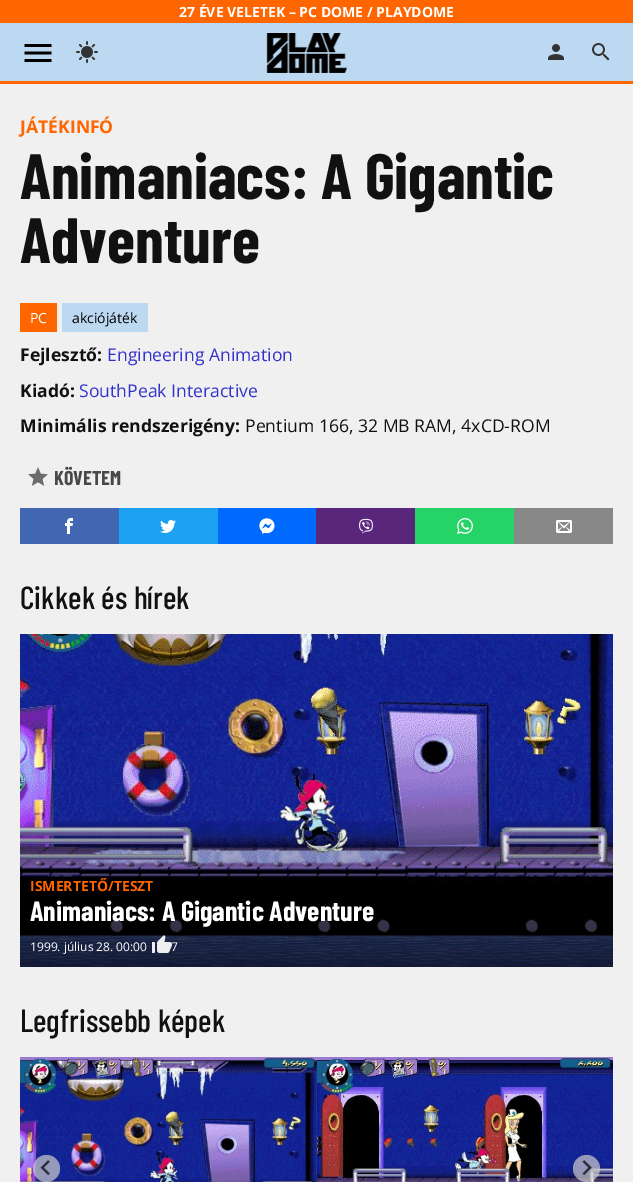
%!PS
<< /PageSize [633 1182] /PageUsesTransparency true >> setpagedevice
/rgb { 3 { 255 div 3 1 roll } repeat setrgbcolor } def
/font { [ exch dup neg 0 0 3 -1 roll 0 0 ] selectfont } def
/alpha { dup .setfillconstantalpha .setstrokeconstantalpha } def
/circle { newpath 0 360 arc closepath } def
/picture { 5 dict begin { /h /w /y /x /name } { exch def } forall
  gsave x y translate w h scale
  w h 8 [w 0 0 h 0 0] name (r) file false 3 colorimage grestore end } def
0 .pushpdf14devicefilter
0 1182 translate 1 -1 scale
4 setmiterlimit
240 240 240 rgb
0 0 633 1182 rectfill
[
  [0 23 633 58 188 217 241]
  [0 81 633 3 255 102 0]
  [0 0 633 23 255 102 0]
] { aload pop rgb rectfill } forall
(img/1.rgb) 24 44 28 18 picture
(img/2.rgb) 76 41 22 22 picture
(img/3.rgb) 266 33 81 40 picture
(img/4.rgb) 548 44 16 16 picture
(img/5.rgb) 592 43 18 18 picture
20 303 37 29 rectfill
188 217 241 rgb
62 303 86 29 rectfill
(img/6.rgb) 28 467 20 19 picture
66 103 178 rgb
20 508 99 36 rectfill
(img/7.rgb) 65 518 8 16 picture
29 161 242 rgb
119 508 99 36 rectfill
(img/8.rgb) 160 520 16 13 picture
0 106 255 rgb
218 508 98 36 rectfill
(img/9.rgb) 259 518 16 16 picture
89 38 124 rgb
316 508 99 36 rectfill
(img/10.rgb) 359 518 14 16 picture
37 211 102 rgb
415 508 99 36 rectfill
(img/11.rgb) 457 518 16 16 picture
136 136 136 rgb
514 508 99 36 rectfill
(img/12.rgb) 556 520 16 13 picture
(img/13.rgb) 20 634 593 333 picture
(img/15.rgb) 20 1057 297 125 picture
(img/16.rgb) 317 1057 296 125 picture
0.7 alpha
204 204 204 rgb
46.5 1168.5 13.5 circle fill
1 alpha
(img/17.rgb) 40 1160 10 16 picture
0.7 alpha
586.5 1168.5 13.5 circle fill
1 alpha
(img/18.rgb) 582 1160 10 16 picture
/OpenSans-Bold 14 font
255 255 255 rgb
179 17 moveto (27 ÉVE VELETEK – PC DOME / PLAYDOME) show
/OpenSans-Bold 17.6 font
255 102 0 rgb
20 133 moveto (JÁTÉKINFÓ) show
/BarlowCondensed-Bold 64 font
17 17 17 rgb
20 199 moveto (Animaniacs: A Gigantic) show
20 263 moveto (Adventure) show
/OpenSans-Regular 14 font
255 255 255 rgb
30 323 moveto (PC) show
0 0 0 rgb
72 323 moveto (akciójáték) show
/OpenSans-Bold 17.6 font
17 17 17 rgb
20 361 moveto (Fejlesztő:) show
/OpenSans-Regular 17.6 font
51 51 204 rgb
107 361 moveto (Engineering Animation) show
/OpenSans-Bold 17.6 font
17 17 17 rgb
20 397 moveto (Kiadó:) show
/OpenSans-Regular 17.6 font
51 51 204 rgb
79 397 moveto (SouthPeak Interactive) show
/OpenSans-Bold 17.6 font
17 17 17 rgb
20 432 moveto (Minimális rendszerigény:) show
/OpenSans-Regular 17.6 font
245 432 moveto (Pentium 166, 32 MB RAM, 4xCD-ROM) show
/BarlowCondensed-Bold 20 font
72 72 72 rgb
54 485 moveto (KÖVETEM) show
/BarlowCondensed-Medium 32 font
17 17 17 rgb
20 609 moveto (Cikkek és hírek) show
/OpenSans-Bold 14 font
255 102 0 rgb
30 891 moveto (ISMERTETŐ/TESZT) show
/BarlowCondensed-Bold 28 font
255 255 255 rgb
30 921 moveto (Animaniacs: A Gigantic Adventure) show
/OpenSans-Regular 12 font
30 951 moveto (1999. július 28. 00:00) show
171 951 moveto (7) show
(img/14.rgb) 152 935 20 18 picture
/BarlowCondensed-Medium 32 font
17 17 17 rgb
20 1032 moveto (Legfrissebb képek) show
.poppdf14devicefilter showpage
